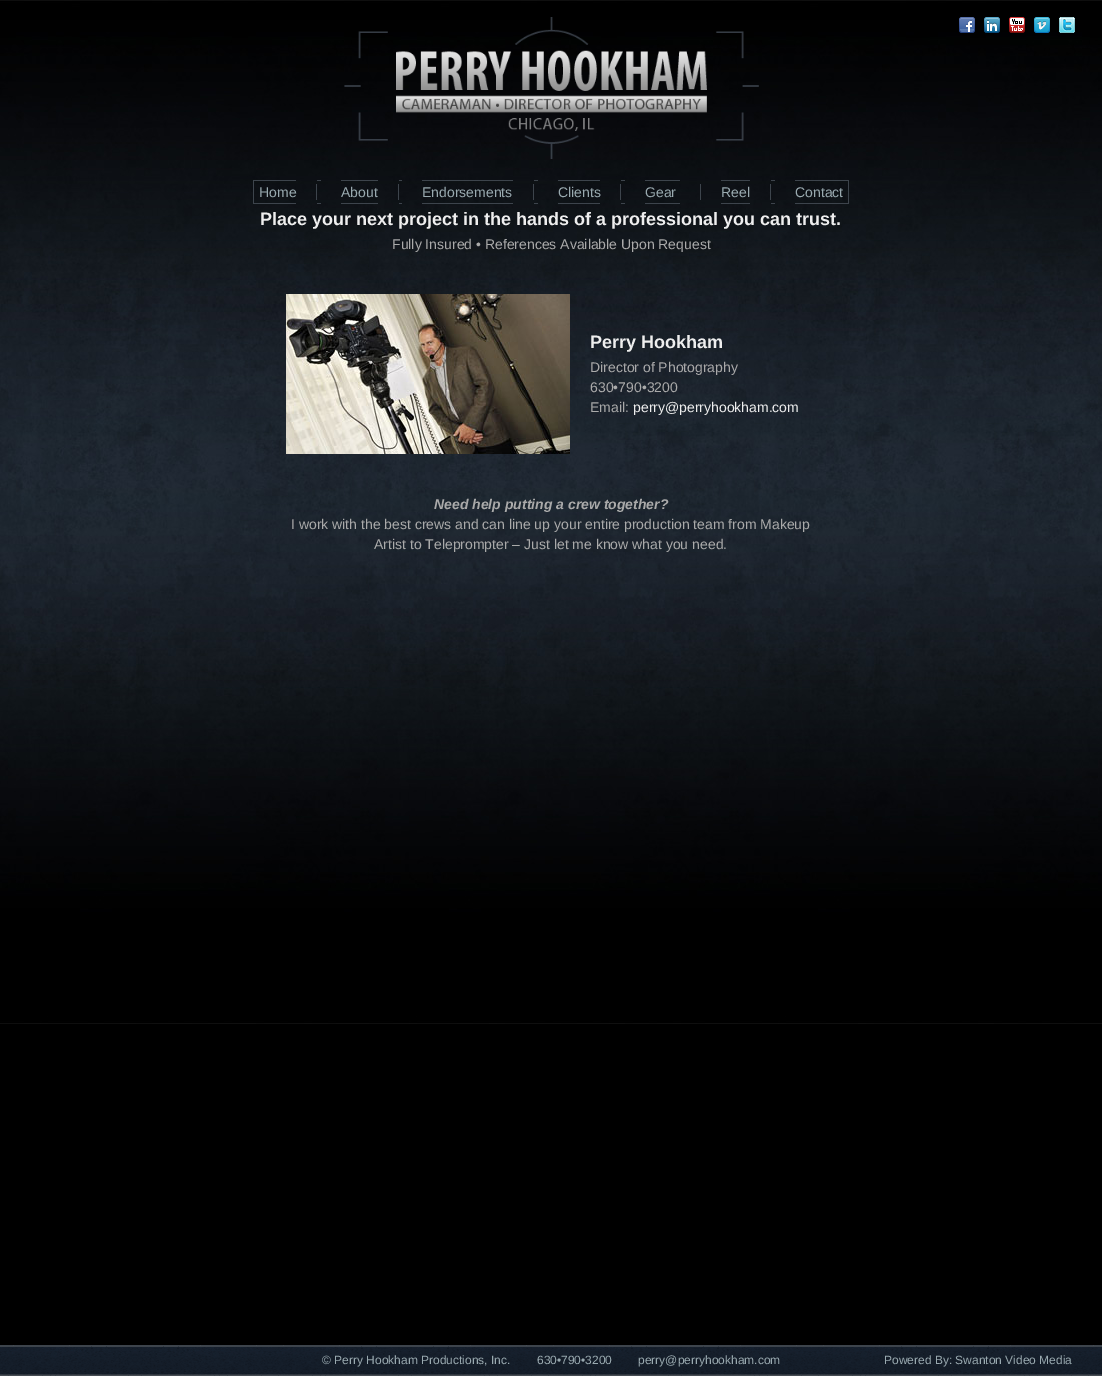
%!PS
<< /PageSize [1102 1376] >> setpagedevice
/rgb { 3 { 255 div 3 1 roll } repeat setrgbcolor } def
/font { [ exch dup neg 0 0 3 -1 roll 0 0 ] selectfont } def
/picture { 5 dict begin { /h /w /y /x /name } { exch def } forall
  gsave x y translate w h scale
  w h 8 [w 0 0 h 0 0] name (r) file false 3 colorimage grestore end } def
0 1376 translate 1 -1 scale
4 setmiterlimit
0 0 0 rgb
0 0 1102 1376 rectfill
(img/1.rgb) 0 0 1102 1024 picture
(img/2.rgb) 344 17 415 142 picture
(img/3.rgb) 959 17 16 16 picture
(img/4.rgb) 984 17 16 16 picture
(img/5.rgb) 1009 17 16 16 picture
(img/6.rgb) 1034 17 16 16 picture
(img/7.rgb) 1059 17 16 16 picture
[
  [253 180 43 1 61 68 76]
  [253 203 43 1 61 68 76]
  [253 180 1 24 61 68 76]
  [317 203 4 1 61 68 76]
  [316 184 1 16 61 68 76]
  [317 180 4 1 61 68 76]
  [341 180 37 1 61 68 76]
  [341 203 37 1 61 68 76]
  [399 180 3 1 61 68 76]
  [399 203 3 1 61 68 76]
  [398 184 1 16 61 68 76]
  [422 180 91 1 61 68 76]
  [422 203 91 1 61 68 76]
  [533 184 1 16 61 68 76]
  [534 180 4 1 61 68 76]
  [534 203 4 1 61 68 76]
  [558 180 42 1 61 68 76]
  [558 203 42 1 61 68 76]
  [621 180 4 1 61 68 76]
  [620 184 1 16 61 68 76]
  [621 203 4 1 61 68 76]
  [645 180 35 1 61 68 76]
  [645 203 35 1 61 68 76]
  [721 180 29 1 61 68 76]
  [721 203 29 1 61 68 76]
  [771 180 4 1 61 68 76]
  [700 184 1 16 61 68 76]
  [770 184 1 16 61 68 76]
  [771 203 4 1 61 68 76]
  [795 180 54 1 61 68 76]
  [848 180 1 24 61 68 76]
  [795 203 54 1 61 68 76]
] { aload pop rgb rectfill } forall
(img/8.rgb) 286 294 284 160 picture
(img/9.rgb) 0 1345 1102 31 picture
/LiberationSans-Regular 14 font
154 170 176 rgb
[
  [(Home) 259 197]
  [(About) 341 197]
  [(Endorsements) 422 197]
  [(Clients) 558 197]
  [(Gear) 645 197]
  [(Reel) 721 197]
  [(Contact) 795 197]
] { aload pop moveto show } forall
/LiberationSans-Bold 18 font
238 238 238 rgb
260 225 moveto (Place your next project in the hands of a professional you can trust.) show
/LiberationSans-Regular 14 font
170 170 170 rgb
392 249 moveto (Fully Insured • References Available Upon Request) show
/LiberationSans-Bold 18 font
238 238 238 rgb
590 348 moveto (Perry Hookham) show
/LiberationSans-Regular 14 font
170 170 170 rgb
[
  [(Director of Photography) 590 372]
  [(630•790•3200) 590 392]
  [(Email:) 590 412]
] { aload pop moveto show } forall
238 238 238 rgb
633 412 moveto (perry@perryhookham.com) show
/LiberationSans-BoldItalic 14 font
170 170 170 rgb
434 509 moveto (Need help putting a crew together?) show
/LiberationSans-Regular 14 font
291 529 moveto (I work with the best crews and can line up your entire production team from Makeup) show
374 549 moveto (Artist to Teleprompter – Just let me know what you need.) show
/LiberationSans-Regular 12 font
154 170 176 rgb
[
  [(© Perry Hookham Productions, Inc.        630•790•3200) 322 1364]
  [(perry@perryhookham.com) 638 1364]
  [(Powered By: Swanton Video Media) 884 1364]
] { aload pop moveto show } forall
showpage
